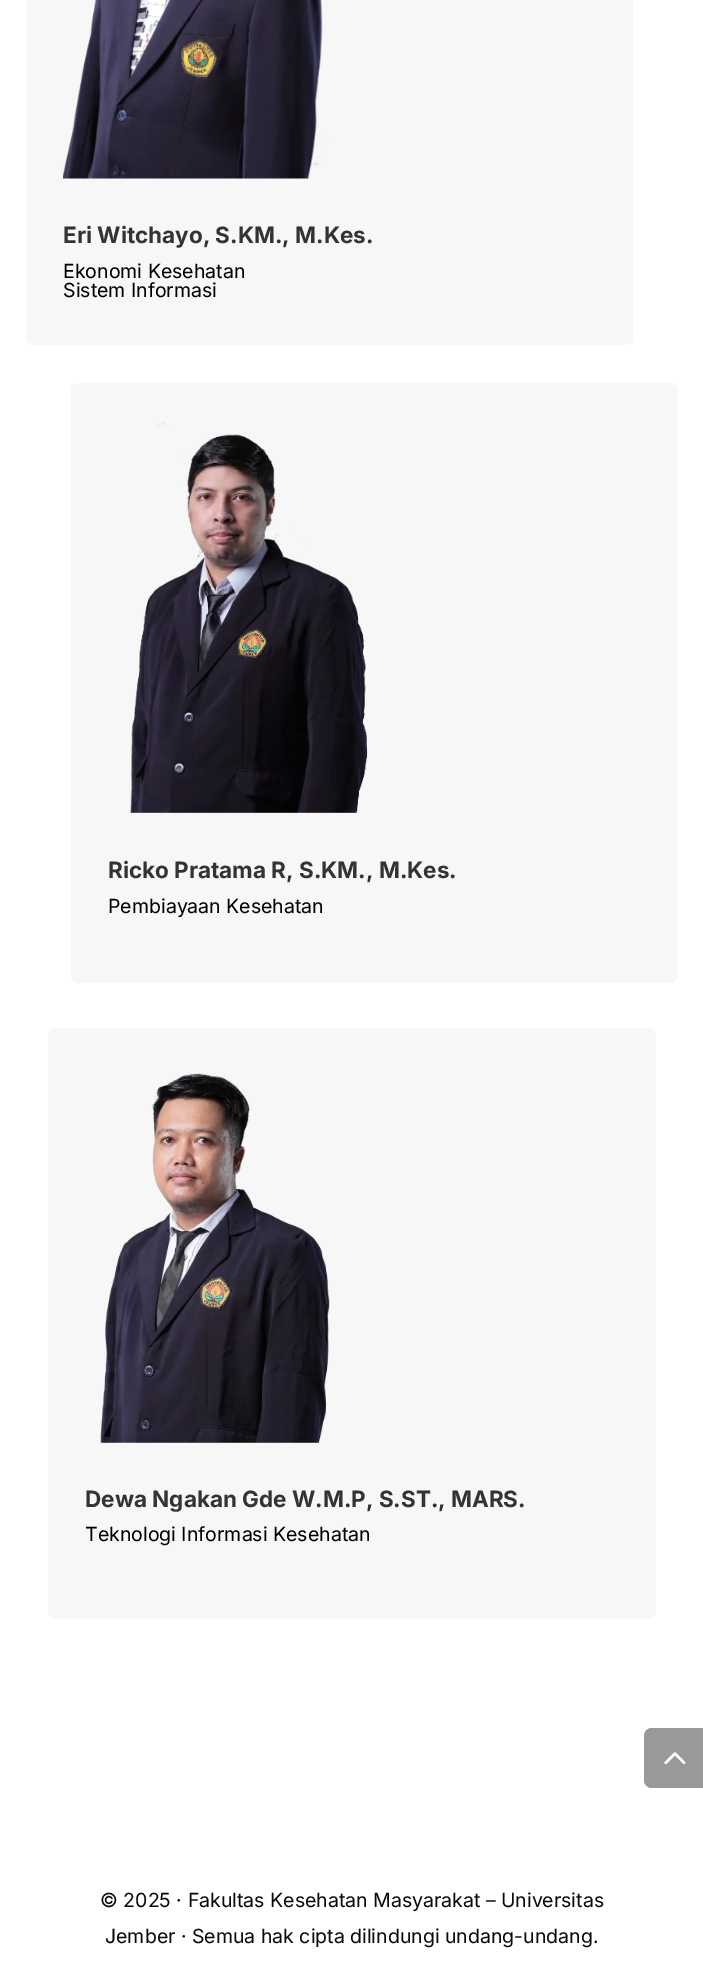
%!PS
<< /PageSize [703 1975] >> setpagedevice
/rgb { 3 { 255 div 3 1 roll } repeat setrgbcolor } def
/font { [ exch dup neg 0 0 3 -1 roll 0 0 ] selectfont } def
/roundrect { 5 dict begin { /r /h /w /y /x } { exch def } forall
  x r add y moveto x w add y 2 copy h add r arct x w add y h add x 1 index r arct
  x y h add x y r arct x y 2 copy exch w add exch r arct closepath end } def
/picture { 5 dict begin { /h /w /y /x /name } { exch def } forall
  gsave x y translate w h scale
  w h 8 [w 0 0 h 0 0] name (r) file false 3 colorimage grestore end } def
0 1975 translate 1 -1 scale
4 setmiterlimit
255 255 255 rgb
0 0 703 1975 rectfill
247 247 247 rgb
26 -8 607 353 8 roundrect fill
(img/1.rgb) 63 0 267 179 picture
71 383 607 600 8 roundrect fill
(img/2.rgb) 130 421 238 392 picture
48 1028 608 591 8 roundrect fill
(img/3.rgb) 100 1073 230 370 picture
153 153 153 rgb
652 1728 moveto 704 1728 lineto 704 1788 lineto 652 1788 lineto 647.5 1788 644 1784.5 644 1780 curveto 644 1736 lineto 644 1731.5 647.5 1728 652 1728 curveto closepath fill
(img/4.rgb) 664 1752 22 13 picture
/Inter-Bold 22.5 font
51 51 51 rgb
63 243 moveto (Eri Witchayo, S.KM., M.Kes.) show
/Inter-Regular 19.5 font
0 0 0 rgb
63 278 moveto (Ekonomi Kesehatan) show
63 297 moveto (Sistem Informasi) show
/Inter-Bold 22.5 font
51 51 51 rgb
108 878 moveto (Ricko Pratama R, S.KM., M.Kes.) show
/Inter-Regular 19.5 font
0 0 0 rgb
108 913 moveto (Pembiayaan Kesehatan) show
/Inter-Bold 22.5 font
51 51 51 rgb
85 1507 moveto (Dewa Ngakan Gde W.M.P, S.ST., MARS.) show
/Inter-Regular 19.5 font
0 0 0 rgb
85 1541 moveto (Teknologi Informasi Kesehatan) show
10 10 10 rgb
100 1907 moveto (© 2025 · Fakultas Kesehatan Masyarakat – Universitas) show
105 1943 moveto (Jember · Semua hak cipta dilindungi undang-undang.) show
showpage
